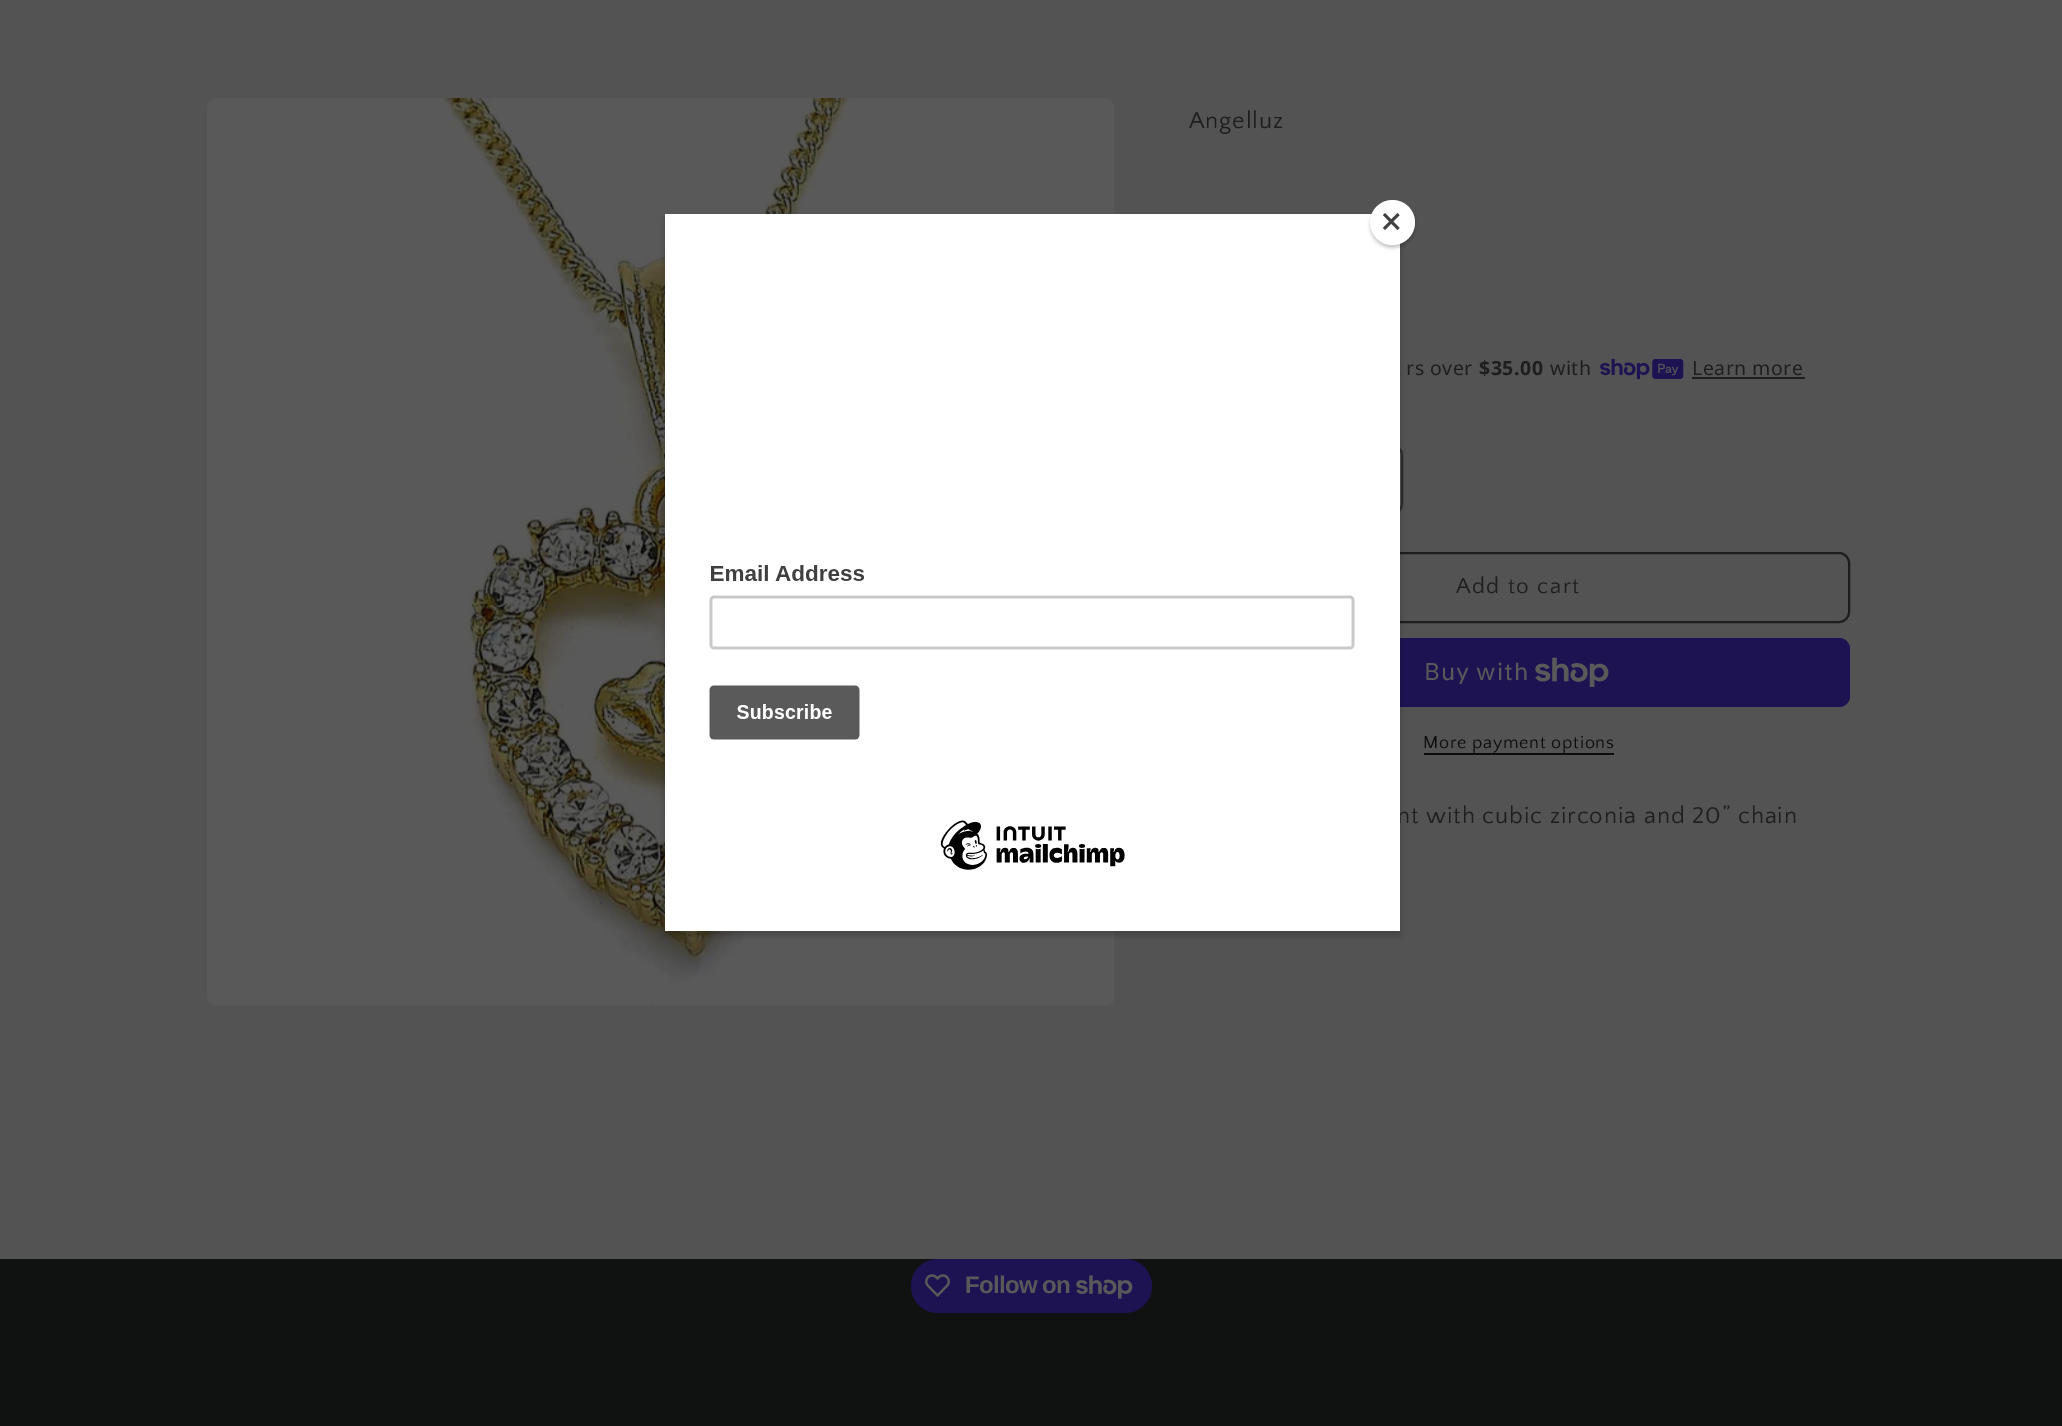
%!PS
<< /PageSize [2062 1426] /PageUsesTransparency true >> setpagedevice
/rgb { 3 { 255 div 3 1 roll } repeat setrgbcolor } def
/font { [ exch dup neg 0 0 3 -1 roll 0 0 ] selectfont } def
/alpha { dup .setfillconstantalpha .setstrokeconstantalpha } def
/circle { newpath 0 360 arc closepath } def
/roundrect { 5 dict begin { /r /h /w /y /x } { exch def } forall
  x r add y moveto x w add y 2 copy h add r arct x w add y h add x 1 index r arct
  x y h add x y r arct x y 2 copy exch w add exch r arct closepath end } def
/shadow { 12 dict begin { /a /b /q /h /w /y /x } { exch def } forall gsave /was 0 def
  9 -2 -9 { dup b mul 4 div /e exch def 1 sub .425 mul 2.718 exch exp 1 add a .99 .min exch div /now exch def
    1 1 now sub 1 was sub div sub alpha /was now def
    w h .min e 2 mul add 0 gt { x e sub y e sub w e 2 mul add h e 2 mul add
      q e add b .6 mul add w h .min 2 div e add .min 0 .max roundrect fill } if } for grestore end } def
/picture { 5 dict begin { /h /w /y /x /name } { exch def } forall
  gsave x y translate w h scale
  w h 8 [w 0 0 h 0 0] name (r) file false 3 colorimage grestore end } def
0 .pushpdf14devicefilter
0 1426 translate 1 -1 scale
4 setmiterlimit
84 83 83 rgb
0 0 2062 1426 rectfill
(img/2.rgb) 207 98 908 908 picture
45 44 44 rgb
2 setlinewidth
1191 445 211 69 10 roundrect stroke
28 30 30 rgb
1191 553 658 69 10 roundrect stroke
29 18 82 rgb
1190 638 660 69 11 roundrect fill
0 0 0 rgb
665 218 735 717 0 3 0.2 shadow
(img/3.rgb) 1600 359 84 21 picture
31 30 30 rgb
1692 377 113 2 rectfill
(img/4.rgb) 1535 657 74 30 picture
13 13 13 rgb
1424 753 190 2 rectfill
15 18 16 rgb
0 1259 2062 167 rectfill
29 18 82 rgb
911 1259 241 54 27 roundrect fill
(img/5.rgb) 925 1274 25 23 picture
(img/6.rgb) 1076 1275 57 24 picture
/QuattrocentoSans-Regular 24 font
31 30 30 rgb
1189 128 moveto 0.9 0 (Angelluz) ashow
/NotoSans-Regular 19.5 font
1406 375 moveto 0.5 0 (rs over) ashow
/NotoSans-Bold 19.5 font
1479 375 moveto 0.5 0 ($35.00) ashow
/NotoSans-Regular 19.5 font
1550 375 moveto 0.5 0 (with) ashow
1692 375 moveto 0.5 0 (Learn more) ashow
/QuattrocentoSans-Regular 22.5 font
1456 593 moveto 1.5 0 (Add to cart) ashow
/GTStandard-Regular 24 font
89 89 89 rgb
1424 680 moveto 0.9 0 (Buy with) ashow
/QuattrocentoSans-Regular 18 font
13 13 13 rgb
1423 748 moveto 0.75 0 (More payment options) ashow
/QuattrocentoSans-Regular 24 font
31 30 30 rgb
1397 823 moveto 0.9 0 (nt with cubic zirconia and 20” chain) ashow
(img/1.rgb) 665 214 735 717 picture
0 0 0 rgb
1370 203 45 45 22.5 1.5 0.2 shadow
255 255 255 rgb
1392.5 222.5 22.5 circle fill
65 65 65 rgb
1397.5 213 moveto 1399.5 215 lineto 1385 230 lineto 1383 228 lineto closepath fill
1383 215 moveto 1385 213 lineto 1399.5 228 lineto 1397.5 230 lineto closepath fill
/LiberationSans-Bold 24 font
89 89 89 rgb
965 1293 moveto -0.75 0 (Follow on) ashow
.poppdf14devicefilter showpage
